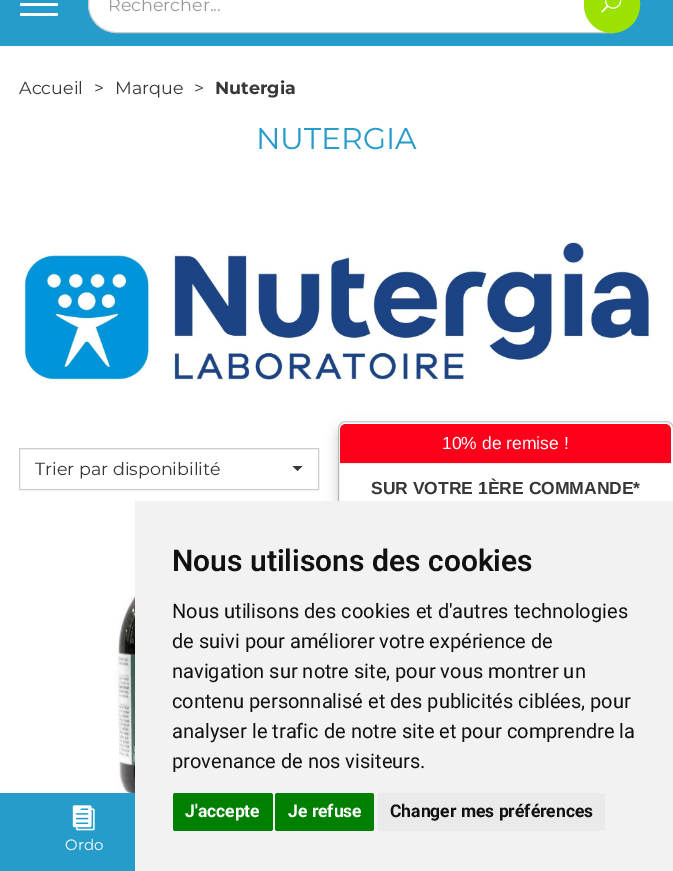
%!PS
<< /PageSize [673 871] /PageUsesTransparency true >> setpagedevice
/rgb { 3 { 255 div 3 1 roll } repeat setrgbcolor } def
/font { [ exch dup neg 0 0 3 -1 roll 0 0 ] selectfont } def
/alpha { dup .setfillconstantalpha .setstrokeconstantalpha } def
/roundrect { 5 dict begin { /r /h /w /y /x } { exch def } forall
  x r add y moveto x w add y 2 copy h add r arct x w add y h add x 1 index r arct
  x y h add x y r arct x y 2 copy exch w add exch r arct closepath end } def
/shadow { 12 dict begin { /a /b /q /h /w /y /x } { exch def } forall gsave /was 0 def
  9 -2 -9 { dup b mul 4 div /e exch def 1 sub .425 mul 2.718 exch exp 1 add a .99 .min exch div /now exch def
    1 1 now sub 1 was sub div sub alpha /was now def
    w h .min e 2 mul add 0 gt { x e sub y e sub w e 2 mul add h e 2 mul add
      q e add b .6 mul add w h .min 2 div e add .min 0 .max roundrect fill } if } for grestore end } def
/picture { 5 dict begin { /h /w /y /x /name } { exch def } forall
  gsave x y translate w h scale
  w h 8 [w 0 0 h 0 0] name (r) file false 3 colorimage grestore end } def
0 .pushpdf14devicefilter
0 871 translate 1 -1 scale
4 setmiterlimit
255 255 255 rgb
0 0 673 871 rectfill
38 156 203 rgb
0 0 673 46 rectfill
255 255 255 rgb
20 3 38 3 1.5 roundrect fill
20 13 38 3 1.5 roundrect fill
116.5 -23.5 moveto 612.5 -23.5 lineto 612.5 32.5 lineto 116.5 32.5 lineto 101 32.5 88.5 20 88.5 4.5 curveto 88.5 -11 101 -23.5 116.5 -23.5 curveto closepath gsave fill grestore
204 204 204 rgb
stroke
155 226 0 rgb
584.5 -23.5 55 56 27.5 roundrect gsave fill grestore
stroke
(img/1.rgb) 601 0 21 13 picture
(img/2.rgb) 24 242 627 140 picture
203 207 204 rgb
19.5 448.5 299 41 rectstroke
55 55 55 rgb
292.5 466 moveto 302.5 466 lineto 297.5 471 lineto closepath fill
(img/3.rgb) 115 534 20 259 picture
0 0 0 rgb
338 428 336 316 8 6 0.2 shadow
255 255 255 rgb
339 423 334 313 6 roundrect fill
0.2 alpha
0 0 0 rgb
338.5 421.5 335 316 7.5 roundrect stroke
1 alpha
254 0 25 rgb
346 424 moveto 665 424 lineto 668.5 424 671 426.5 671 430 curveto 671 464 lineto 340 464 lineto 340 430 lineto 340 426.5 342.5 424 346 424 curveto closepath fill
235 235 235 rgb
340 463 331 1 rectfill
242 242 242 rgb
135 501 538 370 rectfill
0 128 0 rgb
173 793 100 38 2.5 roundrect fill
275 793 99 38 2.5 roundrect fill
234 234 234 rgb
378 793 227 38 2.5 roundrect fill
38 156 203 rgb
0 793 135 78 rectfill
(img/4.rgb) 72 805 23 26 picture
/Montserrat-Regular 17.5 font
153 153 153 rgb
108 11 moveto (Rechercher...) show
55 55 55 rgb
[
  [(Accueil) 19 94]
  [(>) 94 94]
  [(Marque) 115 94]
  [(>) 194 94]
] { aload pop moveto show } forall
/Montserrat-Bold 17.5 font
215 94 moveto (Nutergia) show
/Montserrat-Regular 30 font
38 156 203 rgb
256 149 moveto (NUTERGIA) show
/Montserrat-Regular 17.5 font
55 55 55 rgb
35 475 moveto (Trier par disponibilité) show
/LiberationSans-Regular 17.5 font
255 255 255 rgb
442 449 moveto (10% de remise !) show
/LiberationSans-Bold 17.5 font
55 55 55 rgb
371 494 moveto (SUR VOTRE 1ÈRE COMMANDE*) show
/Roboto-SemiBold 30 font
17 17 17 rgb
172 571 moveto (Nous utilisons des cookies) show
/Roboto-Regular 20 font
[
  [(Nous utilisons des cookies et d'autres technologies) 172 618]
  [(de suivi pour améliorer votre expérience de) 172 648]
  [(navigation sur notre site, pour vous montrer un) 172 678]
  [(contenu personnalisé et des publicités ciblées, pour) 172 708]
  [(analyser le trafic de notre site et pour comprendre la) 172 738]
  [(provenance de nos visiteurs.) 172 768]
] { aload pop moveto show } forall
/Roboto-Bold 17.5 font
255 255 255 rgb
185 817 moveto (J'accepte) show
288 817 moveto (Je refuse) show
17 17 17 rgb
390 817 moveto (Changer mes préférences) show
/Montserrat-Regular 15 font
255 255 255 rgb
65 850 moveto (Ordo) show
.poppdf14devicefilter showpage
